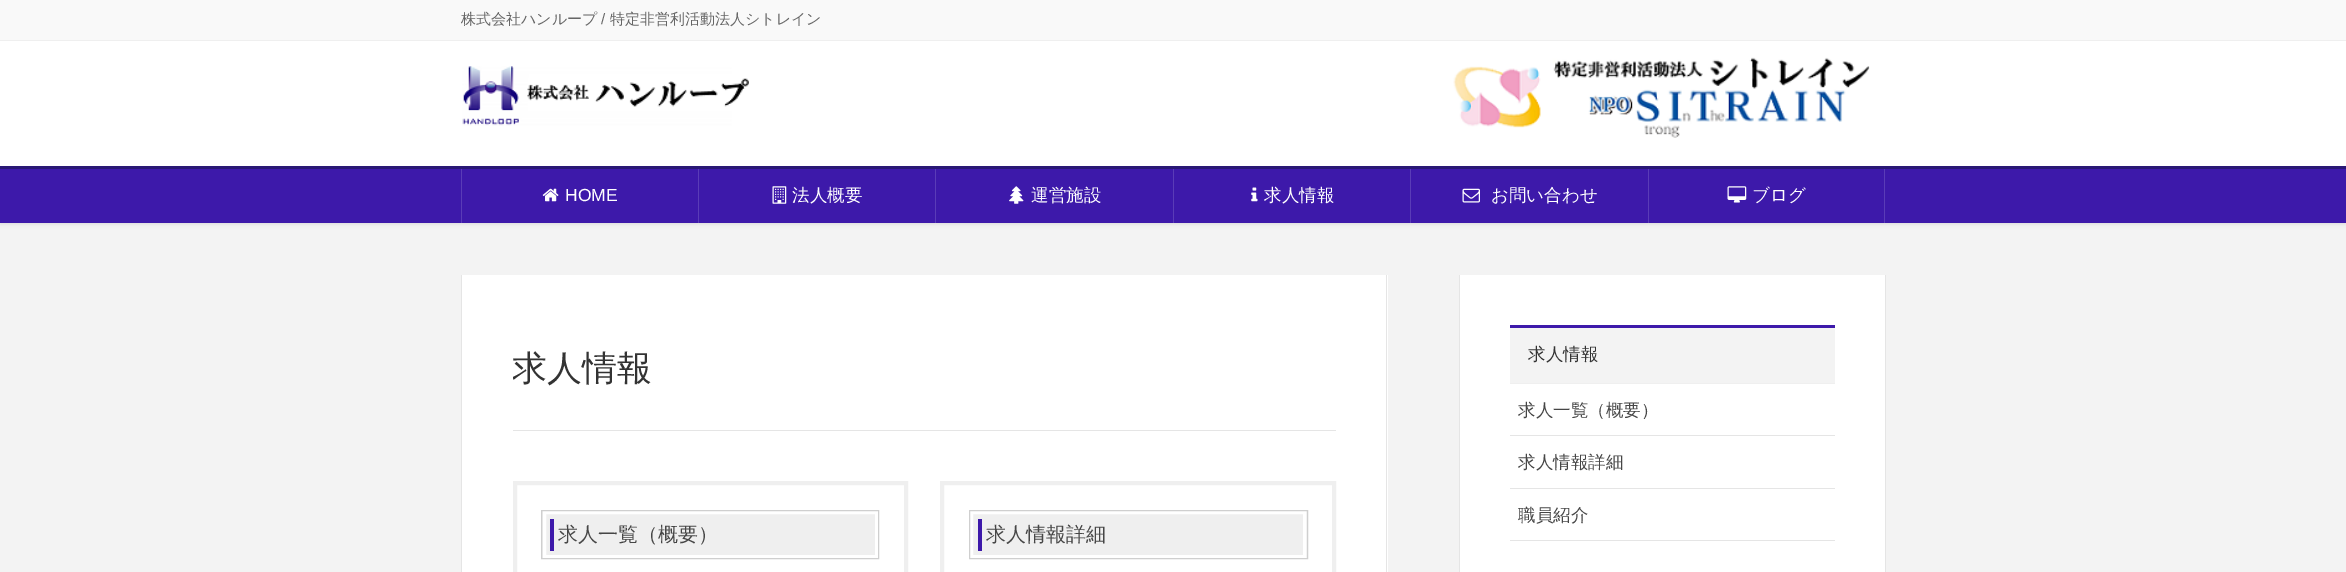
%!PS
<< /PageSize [2346 572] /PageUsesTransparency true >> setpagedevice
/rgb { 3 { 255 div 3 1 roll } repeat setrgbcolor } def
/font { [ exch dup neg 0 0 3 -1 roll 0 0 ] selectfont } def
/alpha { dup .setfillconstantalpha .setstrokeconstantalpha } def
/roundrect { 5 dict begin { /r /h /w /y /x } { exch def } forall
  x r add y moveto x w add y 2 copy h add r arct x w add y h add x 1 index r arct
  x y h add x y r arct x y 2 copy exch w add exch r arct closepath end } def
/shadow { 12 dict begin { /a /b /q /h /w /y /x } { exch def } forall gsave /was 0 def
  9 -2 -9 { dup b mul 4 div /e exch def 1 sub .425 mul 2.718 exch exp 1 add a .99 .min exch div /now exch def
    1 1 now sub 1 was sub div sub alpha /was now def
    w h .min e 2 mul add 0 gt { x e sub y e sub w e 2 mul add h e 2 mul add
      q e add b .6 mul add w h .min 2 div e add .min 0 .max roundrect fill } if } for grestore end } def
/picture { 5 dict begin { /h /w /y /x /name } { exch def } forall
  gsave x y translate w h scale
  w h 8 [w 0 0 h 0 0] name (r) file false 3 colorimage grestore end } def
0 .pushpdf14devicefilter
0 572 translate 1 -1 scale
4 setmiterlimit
243 243 243 rgb
0 0 2346 572 rectfill
0 0 0 rgb
0 1 2346 223 0 2 0.1 shadow
[
  [0 41 2346 125 255 255 255]
  [0 0 2346 40 249 249 249]
  [0 40 2346 1 239 239 239]
] { aload pop rgb rectfill } forall
(img/1.rgb) 462 66 287 60 picture
(img/2.rgb) 1453 57 417 81 picture
[
  [0 169 2346 54 61 25 170]
  [0 166 2346 3 41 24 117]
  [461 169 1 54 90 60 183]
] { aload pop rgb rectfill } forall
(img/3.rgb) 542 188 17 14 picture
698 169 1 54 rectfill
(img/4.rgb) 772 186 15 18 picture
935 169 1 54 rectfill
(img/5.rgb) 1009 186 15 18 picture
1173 169 1 54 rectfill
(img/6.rgb) 1251 187 7 15 picture
1410 169 1 54 rectfill
(img/7.rgb) 1462 188 18 15 picture
1884 169 1 54 rectfill
1648 169 1 54 rectfill
(img/8.rgb) 1727 186 20 17 picture
[
  [462 275 926 297 255 255 255]
  [1386 275 1 297 229 229 229]
  [461 275 1 297 229 229 229]
  [513 430 823 1 229 229 229]
] { aload pop rgb rectfill } forall
239 239 239 rgb
4 setlinewidth
515 483 391 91 rectstroke
542 511 333 47 rectfill
255 255 255 rgb
3 setlinewidth
544.5 512.5 332 44 rectstroke
207 207 207 rgb
1 setlinewidth
541.5 510.5 337 48 rectstroke
61 25 170 rgb
550 519 4 32 rectfill
239 239 239 rgb
4 setlinewidth
942 483 392 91 rectstroke
973 511 334 47 rectfill
255 255 255 rgb
3 setlinewidth
971.5 512.5 333 44 rectstroke
207 207 207 rgb
1 setlinewidth
969.5 510.5 338 48 rectstroke
[
  [978 519 4 32 61 25 170]
  [1460 275 425 297 255 255 255]
  [1885 275 1 297 229 229 229]
  [1459 275 1 297 229 229 229]
  [1510 328 325 55 243 243 243]
  [1510 325 325 3 61 25 170]
  [1510 383 325 1 239 239 239]
  [1510 435 325 1 229 229 229]
  [1510 488 325 1 229 229 229]
  [1510 540 325 1 229 229 229]
] { aload pop rgb rectfill } forall
/WenQuanYiZenHei-Medium 15 font
102 102 102 rgb
461 24 moveto (株式会社ハンループ) show
/LiberationSans-Regular 15 font
601 24 moveto (/) show
/WenQuanYiZenHei-Medium 15 font
610 24 moveto (特定非営利活動法人シトレイン) show
/LiberationSans-Regular 17.5 font
255 255 255 rgb
565 201 moveto (HOME) show
/WenQuanYiZenHei-Medium 17.5 font
[
  [(法人概要) 792 201]
  [(運営施設) 1031 201]
  [(求人情報) 1264 201]
  [(お問い合わせ) 1491 201]
  [(ブログ) 1752 201]
] { aload pop moveto show } forall
gsave
513 325 823 105 rectclip
/WenQuanYiZenHei-Medium 35 font
51 51 51 rgb
512 380 moveto (求人情報) show
grestore
/WenQuanYiZenHei-Medium 20 font
70 70 70 rgb
558 541 moveto (求人一覧（概要）) show
986 541 moveto (求人情報詳細) show
/WenQuanYiZenHei-Medium 17.5 font
51 51 51 rgb
1528 360 moveto (求人情報) show
70 70 70 rgb
[
  [(求人一覧（概要）) 1518 416]
  [(求人情報詳細) 1518 468]
  [(職員紹介) 1518 521]
] { aload pop moveto show } forall
.poppdf14devicefilter showpage
